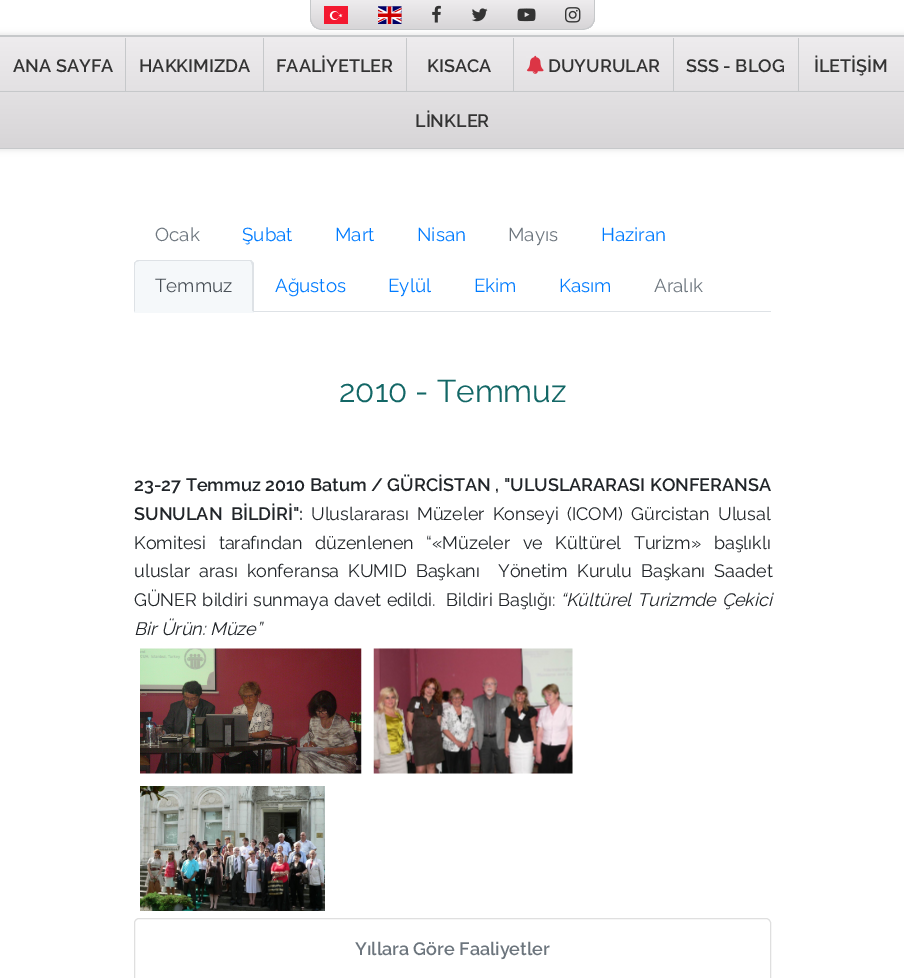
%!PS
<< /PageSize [904 978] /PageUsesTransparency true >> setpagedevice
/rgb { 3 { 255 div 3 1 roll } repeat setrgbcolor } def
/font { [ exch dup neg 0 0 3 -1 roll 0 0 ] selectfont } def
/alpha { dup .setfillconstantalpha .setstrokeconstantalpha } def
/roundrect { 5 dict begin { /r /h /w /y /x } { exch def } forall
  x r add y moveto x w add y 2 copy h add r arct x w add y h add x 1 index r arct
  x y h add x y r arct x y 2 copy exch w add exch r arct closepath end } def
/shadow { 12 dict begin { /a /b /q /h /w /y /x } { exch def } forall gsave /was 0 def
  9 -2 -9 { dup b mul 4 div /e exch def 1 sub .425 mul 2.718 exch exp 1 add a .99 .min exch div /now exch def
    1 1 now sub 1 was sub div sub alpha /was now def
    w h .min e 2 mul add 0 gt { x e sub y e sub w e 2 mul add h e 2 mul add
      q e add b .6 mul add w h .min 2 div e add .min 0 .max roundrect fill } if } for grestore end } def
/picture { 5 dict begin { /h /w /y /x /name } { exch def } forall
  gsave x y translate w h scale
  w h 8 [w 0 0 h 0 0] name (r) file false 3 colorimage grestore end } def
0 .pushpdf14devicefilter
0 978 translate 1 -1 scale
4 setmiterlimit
255 255 255 rgb
0 0 904 978 rectfill
0 0 0 rgb
-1 34 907 116 0 3 0.1 shadow
gsave
310 0 moveto 595 0 lineto 595 17 lineto 595 24 589 30 582 30 curveto 323 30 lineto 316 30 310 24 310 17 curveto closepath clip newpath
gsave 310 0 moveto 595 0 lineto 595 29 lineto 310 29 lineto closepath clip newpath
<< /ShadingType 2 /ColorSpace /DeviceRGB /Coords [453 0 453 29] /Extend [true true] /Function << /FunctionType 2 /Domain [0 1] /C0 [0.933 0.925 0.933] /C1 [0.843 0.835 0.843] /N 1 >> >> shfill grestore
grestore
198 200 202 rgb
310 0 moveto 595 0 lineto 595 18 lineto 595 24 589 30 582 30 curveto 322 30 lineto 316 30 310 24 310 18 curveto closepath 311 0 moveto 594 0 lineto 594 18 lineto 594 24 589 29 582 29 curveto 322 29 lineto 316 29 311 24 311 18 curveto closepath eofill
(img/1.rgb) 324 6 24 18 picture
(img/2.rgb) 378 6 24 18 picture
(img/3.rgb) 432 5 9 18 picture
(img/4.rgb) 471 8 17 14 picture
(img/5.rgb) 517 8 19 14 picture
(img/6.rgb) 565 7 16 16 picture
gsave 0 37 moveto 904 37 lineto 904 148 lineto 0 148 lineto closepath clip newpath
<< /ShadingType 2 /ColorSpace /DeviceRGB /Coords [453 36 453 148] /Extend [true true] /Function << /FunctionType 2 /Domain [0 1] /C0 [0.933 0.925 0.933] /C1 [0.843 0.835 0.843] /N 1 >> >> shfill grestore
[
  [0 35 904 1 198 200 202]
  [0 148 904 1 198 200 202]
  [0 36 904 1 198 200 202]
  [125 38 1 53 198 200 202]
  [263 38 1 53 198 200 202]
  [406 38 1 53 198 200 202]
  [513 38 1 53 198 200 202]
  [673 38 1 53 198 200 202]
] { aload pop rgb rectfill } forall
(img/7.rgb) 526 55 18 19 picture
[
  [798 38 1 53 198 200 202]
  [0 91 904 1 198 200 202]
  [254 311 517 1 222 226 230]
] { aload pop rgb rectfill } forall
245 248 250 rgb
139 260 moveto 249 260 lineto 252 260 254 262 254 265 curveto 254 313 lineto 134 313 lineto 134 265 lineto 134 262 136 260 139 260 curveto closepath fill
222 226 230 rgb
139 260 moveto 137 260 136 261 135 262 curveto 136 262 lineto 139 261 lineto 250 261 lineto 251 262 lineto 252 261 lineto 252 260 250 260 249 260 curveto closepath fill
254 312 moveto 252 311 lineto 252 265 lineto 251 262 lineto 252 261 lineto 254 263 lineto closepath fill
245 248 250 rgb
253 312 moveto 134 312 lineto 135 311 lineto 252 311 lineto closepath fill
222 226 230 rgb
135 262 moveto 134 262 134 264 134 265 curveto 134 312 lineto 135 311 lineto 135 265 lineto 135 264 135 263 136 262 curveto closepath fill
(img/8.rgb) 140 648 222 126 picture
(img/9.rgb) 373 648 200 126 picture
(img/10.rgb) 140 786 185 125 picture
223 223 223 rgb
139 918.5 moveto 766 918.5 lineto 768.5 918.5 770.5 920.5 770.5 923 curveto 770.5 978.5 lineto 134.5 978.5 lineto 134.5 923 lineto 134.5 920.5 136.5 918.5 139 918.5 curveto closepath stroke
/Raleway-SemiBold 18 font
51 51 51 rgb
[
  [(ANA SAYFA) 13 72]
  [(HAKKIMIZDA) 139 72]
  [(FAALİYETLER) 276 72]
  [(KISACA) 427 72]
  [(DUYURULAR) 548 72]
  [(SSS - BLOG) 686 72]
  [(İLETİŞİM) 814 72]
  [(LİNKLER) 415 127]
] { aload pop moveto show } forall
/Raleway-Regular 18.75 font
108 117 125 rgb
155 241 moveto (Ocak) show
0 123 255 rgb
[
  [(Şubat) 242 241]
  [(Mart) 335 241]
  [(Nisan) 417 241]
] { aload pop moveto show } forall
108 117 125 rgb
508 241 moveto (Mayıs) show
0 123 255 rgb
601 241 moveto (Haziran) show
73 80 87 rgb
155 292 moveto (Temmuz) show
0 123 255 rgb
[
  [(Ağustos) 275 292]
  [(Eylül) 388 292]
  [(Ekim) 474 292]
  [(Kasım) 559 292]
] { aload pop moveto show } forall
108 117 125 rgb
654 292 moveto (Aralık) show
/Raleway-Regular 31.5 font
19 103 102 rgb
339 402 moveto (2010 - Temmuz) show
/Raleway-SemiBold 18 font
33 37 41 rgb
134 491 moveto (23-27 Temmuz 2010 Batum / GÜRCİSTAN , "ULUSLARARASI KONFERANSA) show
134 520 moveto 3.75 0 32 (SUNULAN BİLDİRİ":) widthshow
/Raleway-Regular 18 font
311 520 moveto 3.75 0 32 (Uluslararası Müzeler Konseyi \(ICOM\) Gürcistan Ulusal) widthshow
134 549 moveto 8 0 32 (Komitesi tarafından düzenlenen “«Müzeler ve Kültürel Turizm» başlıklı) widthshow
134 577 moveto 4.5 0 32 (uluslar arası konferansa KUMID Başkanı  Yönetim Kurulu Başkanı Saadet) widthshow
134 606 moveto 0.75 0 32 (GÜNER bildiri sunmaya davet edildi.  Bildiri Başlığı:) widthshow
/Raleway-Italic 18 font
560 606 moveto 1 0 32 (“Kültürel Turizmde Çekici) widthshow
134 635 moveto (Bir Ürün: Müze”) show
/Raleway-SemiBold 18 font
108 117 125 rgb
355 955 moveto (Yıllara Göre Faaliyetler) show
.poppdf14devicefilter showpage
